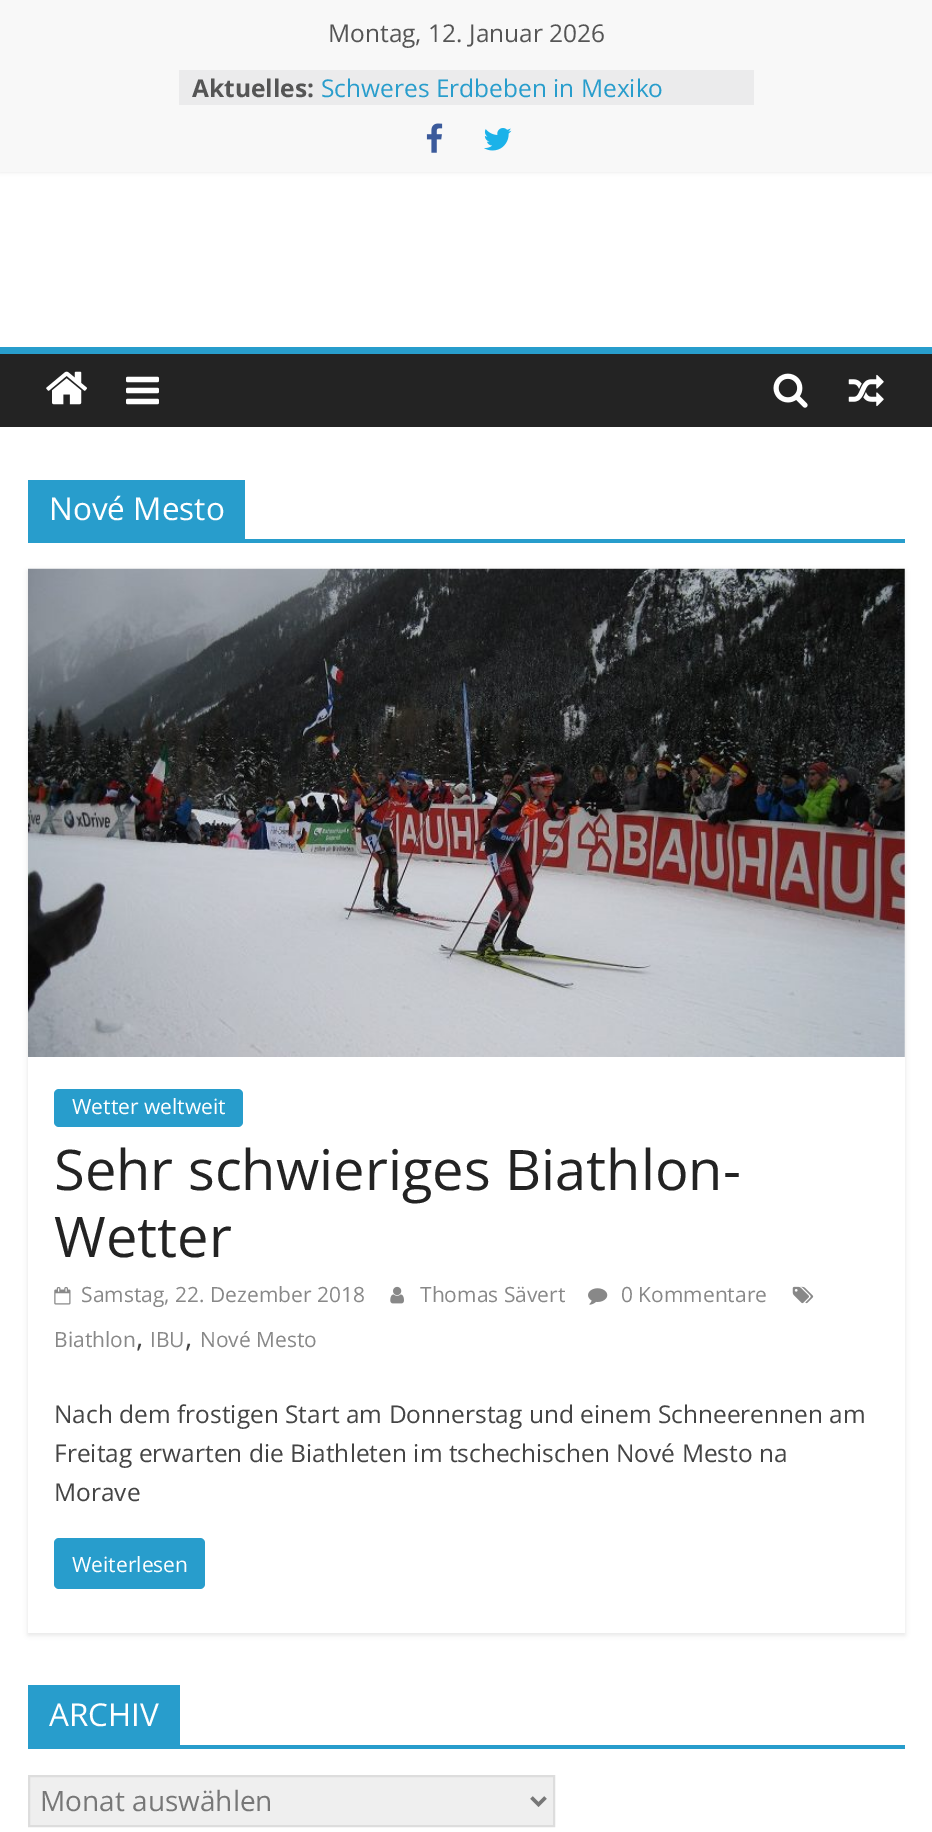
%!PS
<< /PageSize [932 1832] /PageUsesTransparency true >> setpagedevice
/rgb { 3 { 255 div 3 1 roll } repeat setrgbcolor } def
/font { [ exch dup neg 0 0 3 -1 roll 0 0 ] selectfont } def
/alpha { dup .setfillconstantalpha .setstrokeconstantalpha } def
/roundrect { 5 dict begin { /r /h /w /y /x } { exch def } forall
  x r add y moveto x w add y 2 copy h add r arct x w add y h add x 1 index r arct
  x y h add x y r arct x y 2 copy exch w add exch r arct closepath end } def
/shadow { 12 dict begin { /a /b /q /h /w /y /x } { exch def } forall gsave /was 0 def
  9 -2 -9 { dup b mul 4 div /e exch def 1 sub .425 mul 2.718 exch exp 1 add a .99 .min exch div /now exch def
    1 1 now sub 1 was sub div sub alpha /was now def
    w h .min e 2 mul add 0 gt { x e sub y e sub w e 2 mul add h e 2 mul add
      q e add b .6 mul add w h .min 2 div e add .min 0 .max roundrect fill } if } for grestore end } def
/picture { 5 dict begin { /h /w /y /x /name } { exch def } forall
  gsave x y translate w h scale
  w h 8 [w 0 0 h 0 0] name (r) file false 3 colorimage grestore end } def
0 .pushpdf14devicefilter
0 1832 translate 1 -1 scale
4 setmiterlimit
255 255 255 rgb
0 0 932 1832 rectfill
0 0 0 rgb
0 0 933 172 0 2 0.1 shadow
248 248 248 rgb
0 0 932 172 rectfill
235 235 236 rgb
179 70 575 35 rectfill
(img/1.rgb) 426 123 17 30 picture
(img/2.rgb) 484 128 28 23 picture
35 35 35 rgb
0 354 932 73 rectfill
40 157 204 rgb
0 347 932 7 rectfill
(img/3.rgb) 46 371 41 34 picture
(img/4.rgb) 126 376 33 29 picture
(img/5.rgb) 773 373 35 35 picture
(img/6.rgb) 848 374 36 33 picture
28 539 877 4 rectfill
28 480 217 59 rectfill
gsave
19 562 moveto 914 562 lineto 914 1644 lineto 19 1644 lineto closepath 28 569 moveto 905 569 lineto 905 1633 lineto 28 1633 lineto closepath eoclip newpath
0 0 0 rgb
28 571 877 1064 0 2.5 0.1 shadow
grestore
(img/7.rgb) 28 568 877 489 picture
54 1089 189 38 5 roundrect fill
(img/8.rgb) 54 1287 17 18 picture
(img/9.rgb) 390 1286 14 18 picture
(img/10.rgb) 588 1288 20 17 picture
(img/11.rgb) 792 1286 22 18 picture
54 1538 151 51 5 roundrect fill
28 1745 877 4 rectfill
28 1685 152 60 rectfill
239 239 239 rgb
29 1776 moveto 554 1776 lineto 554 1826 lineto 29 1826 lineto closepath gsave fill grestore
221 221 221 rgb
2 setlinewidth
stroke
119 119 119 rgb
3.5 setlinewidth
531.5 1797.5 moveto 538.5 1804.5 lineto 545.5 1797.5 lineto stroke
/OpenSans-Regular 24.5 font
85 85 85 rgb
328 42 moveto (Montag, 12. Januar 2026) show
/OpenSans-Bold 24.5 font
192 97 moveto (Aktuelles:) show
/OpenSans-Regular 24.5 font
40 157 204 rgb
321 97 moveto (Schweres Erdbeben in Mexiko) show
/OpenSans-Regular 31.5 font
255 255 255 rgb
49 520 moveto (Nové Mesto) show
/OpenSans-Regular 21 font
72 1114 moveto (Wetter weltweit) show
/OpenSans-Regular 56 font
35 35 35 rgb
54 1190 moveto (Sehr schwieriges Biathlon-) show
54 1257 moveto (Wetter) show
/OpenSans-Regular 21 font
136 136 136 rgb
[
  [(Samstag, 22. Dezember 2018) 81 1302]
  [(Thomas Sävert) 420 1302]
  [(0 Kommentare) 621 1302]
  [(Biathlon) 54 1347]
] { aload pop moveto show } forall
/OpenSans-Regular 28 font
68 68 68 rgb
136 1347 moveto (,) show
/OpenSans-Regular 21 font
136 136 136 rgb
150 1347 moveto (IBU) show
/OpenSans-Regular 28 font
68 68 68 rgb
185 1347 moveto (,) show
/OpenSans-Regular 21 font
136 136 136 rgb
200 1347 moveto (Nové Mesto) show
/OpenSans-Regular 24.5 font
68 68 68 rgb
[
  [(Nach dem frostigen Start am Donnerstag und einem Schneerennen am) 54 1423]
  [(Freitag erwarten die Biathleten im tschechischen Nové Mesto na) 54 1462]
  [(Morave) 54 1501]
] { aload pop moveto show } forall
/OpenSans-Regular 21 font
255 255 255 rgb
72 1572 moveto (Weiterlesen) show
/OpenSans-Regular 31.5 font
49 1726 moveto (ARCHIV) show
/OpenSans-Regular 28 font
119 119 119 rgb
40 1811 moveto (Monat auswählen) show
.poppdf14devicefilter showpage
